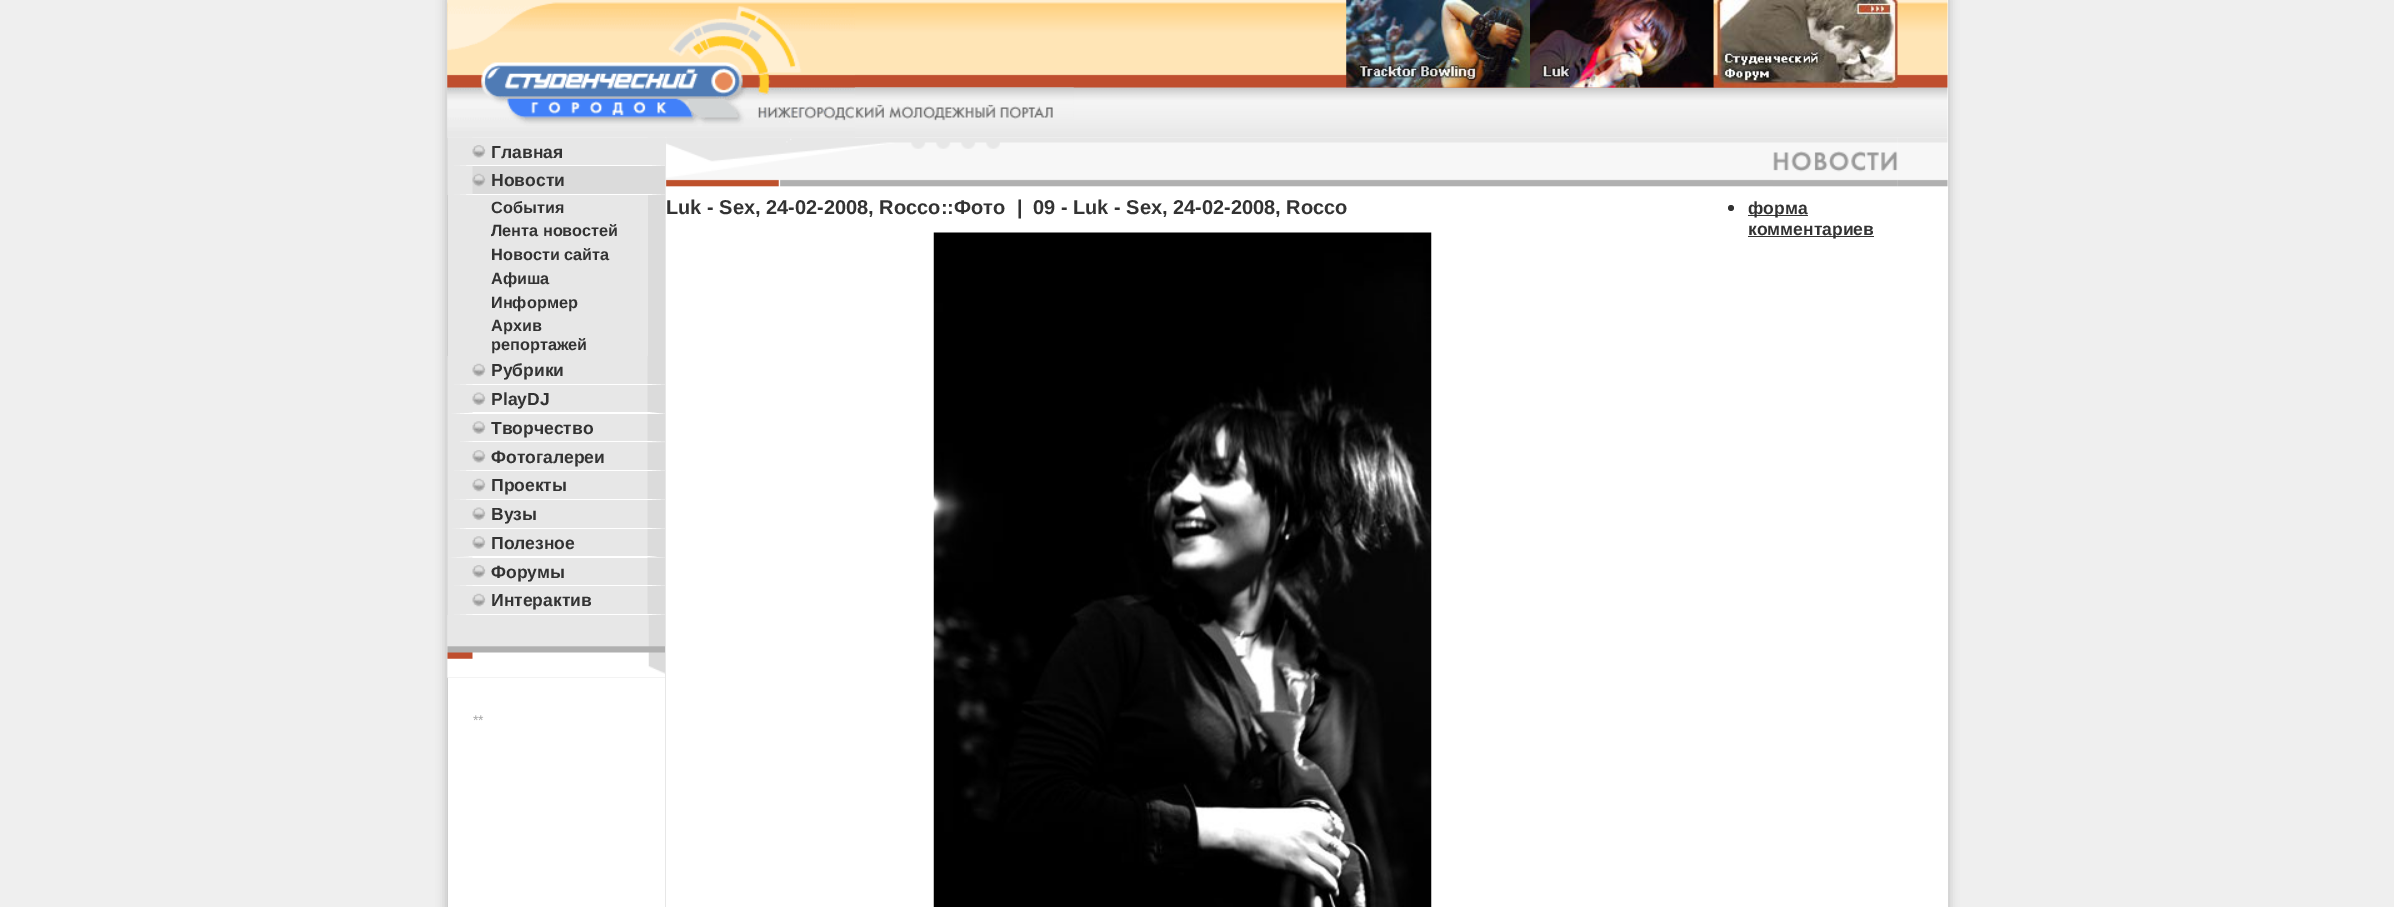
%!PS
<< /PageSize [2394 907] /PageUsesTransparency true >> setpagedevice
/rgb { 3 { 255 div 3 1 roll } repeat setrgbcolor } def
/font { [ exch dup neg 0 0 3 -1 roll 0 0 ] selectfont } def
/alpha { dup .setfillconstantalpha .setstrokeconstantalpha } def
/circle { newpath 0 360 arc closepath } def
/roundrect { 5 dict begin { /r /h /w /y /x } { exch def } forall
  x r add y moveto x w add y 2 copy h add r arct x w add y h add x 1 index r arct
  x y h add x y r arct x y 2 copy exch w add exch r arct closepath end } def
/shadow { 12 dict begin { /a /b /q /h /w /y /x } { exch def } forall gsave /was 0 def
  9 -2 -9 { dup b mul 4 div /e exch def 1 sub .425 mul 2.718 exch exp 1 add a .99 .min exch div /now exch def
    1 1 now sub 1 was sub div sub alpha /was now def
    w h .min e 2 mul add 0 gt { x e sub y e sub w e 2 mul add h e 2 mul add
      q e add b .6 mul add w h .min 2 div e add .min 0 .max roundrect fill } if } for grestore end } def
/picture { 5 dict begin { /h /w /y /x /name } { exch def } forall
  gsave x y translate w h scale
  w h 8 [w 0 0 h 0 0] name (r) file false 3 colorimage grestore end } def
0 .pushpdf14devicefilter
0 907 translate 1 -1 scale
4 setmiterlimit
239 239 239 rgb
0 0 2394 907 rectfill
187 187 187 rgb
446 -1 1503 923 0 5 1 shadow
255 255 255 rgb
448 0 1500 907 rectfill
(img/1.rgb) 447 0 1501 138 picture
231 231 231 rgb
448 138 217 540 rectfill
665 137.5 moveto 665 166 lineto 647.5 165 lineto 647.5 137.5 lineto closepath fill
255 255 255 rgb
665 166 moveto 448 166 lineto 472 165 lineto 648 165 lineto closepath fill
231 231 231 rgb
447.5 166 moveto 447.5 137.5 lineto 472.5 137.5 lineto 472.5 165 lineto closepath fill
(img/13.rgb) 666 137 1232 50 picture
(img/2.rgb) 447 0 408 138 picture
(img/3.rgb) 1346 0 184 88 picture
(img/4.rgb) 1530 0 184 88 picture
(img/5.rgb) 1713 0 185 88 picture
(img/6.rgb) 855 87 219 34 picture
(img/7.rgb) 472 145 14 13 picture
219 219 219 rgb
448 166 217 29 rectfill
255 255 255 rgb
665 195 moveto 448 195 lineto 472 194 lineto 648 194 lineto closepath fill
231 231 231 rgb
447.5 195 moveto 447.5 166 lineto 472.5 166 lineto 472.5 194 lineto closepath fill
(img/8.rgb) 472 173 14 14 picture
219 219 219 rgb
648 195 17 161 rectfill
665 356 moveto 665 385 lineto 647.5 384 lineto 647.5 356 lineto closepath fill
255 255 255 rgb
665 385 moveto 448 385 lineto 472 384 lineto 648 384 lineto closepath fill
231 231 231 rgb
447.5 385 moveto 447.5 356 lineto 472.5 356 lineto 472.5 384 lineto closepath fill
(img/9.rgb) 472 363 14 14 picture
219 219 219 rgb
665 385 moveto 665 414 lineto 647.5 412.5 lineto 647.5 385 lineto closepath fill
255 255 255 rgb
665 414 moveto 448 414 lineto 472 412 lineto 648 412 lineto closepath fill
231 231 231 rgb
447.5 414 moveto 447.5 385 lineto 472.5 385 lineto 472.5 412.5 lineto closepath fill
(img/10.rgb) 472 392 14 14 picture
219 219 219 rgb
665 414 moveto 665 442.5 lineto 647.5 441 lineto 647.5 414 lineto closepath fill
255 255 255 rgb
665 442 moveto 448 442 lineto 472 441 lineto 648 441 lineto closepath fill
231 231 231 rgb
447.5 442.5 moveto 447.5 414 lineto 472.5 414 lineto 472.5 441 lineto closepath fill
(img/11.rgb) 472 421 14 13 picture
219 219 219 rgb
665 442.5 moveto 665 471 lineto 647.5 470 lineto 647.5 442.5 lineto closepath fill
255 255 255 rgb
665 471 moveto 448 471 lineto 472 470 lineto 648 470 lineto closepath fill
231 231 231 rgb
447.5 471 moveto 447.5 442.5 lineto 472.5 442.5 lineto 472.5 470 lineto closepath fill
(img/7.rgb) 472 450 14 13 picture
219 219 219 rgb
665 471 moveto 665 500 lineto 647.5 499 lineto 647.5 471 lineto closepath fill
255 255 255 rgb
665 500 moveto 448 500 lineto 472 499 lineto 648 499 lineto closepath fill
231 231 231 rgb
447.5 500 moveto 447.5 471 lineto 472.5 471 lineto 472.5 499 lineto closepath fill
(img/9.rgb) 472 478 14 14 picture
219 219 219 rgb
665 500 moveto 665 529 lineto 647.5 527.5 lineto 647.5 500 lineto closepath fill
255 255 255 rgb
665 529 moveto 448 529 lineto 472 528 lineto 648 528 lineto closepath fill
231 231 231 rgb
447.5 529 moveto 447.5 500 lineto 472.5 500 lineto 472.5 527.5 lineto closepath fill
(img/10.rgb) 472 507 14 14 picture
219 219 219 rgb
665 529 moveto 665 557.5 lineto 647.5 556 lineto 647.5 529 lineto closepath fill
255 255 255 rgb
665 558 moveto 448 558 lineto 472 556 lineto 648 556 lineto closepath fill
231 231 231 rgb
447.5 557.5 moveto 447.5 529 lineto 472.5 529 lineto 472.5 556 lineto closepath fill
(img/11.rgb) 472 536 14 13 picture
219 219 219 rgb
665 557.5 moveto 665 586 lineto 647.5 585 lineto 647.5 557.5 lineto closepath fill
255 255 255 rgb
665 586 moveto 448 586 lineto 472 585 lineto 648 585 lineto closepath fill
231 231 231 rgb
447.5 586 moveto 447.5 557.5 lineto 472.5 557.5 lineto 472.5 585 lineto closepath fill
(img/7.rgb) 472 565 14 13 picture
219 219 219 rgb
665 586 moveto 665 615 lineto 647.5 614 lineto 647.5 586 lineto closepath fill
255 255 255 rgb
665 615 moveto 448 615 lineto 472 614 lineto 648 614 lineto closepath fill
231 231 231 rgb
447.5 615 moveto 447.5 586 lineto 472.5 586 lineto 472.5 614 lineto closepath fill
(img/9.rgb) 472 593 14 14 picture
(img/12.rgb) 447 615 218 63 picture
665 138 1 769 rectfill
(img/14.rgb) 666 138 334 49 picture
(img/15.rgb) 1773 138 125 49 picture
(img/16.rgb) 933 232 499 675 picture
51 51 51 rgb
1731 208 3 circle fill
1748 215 60 1 rectfill
1748 236 126 1 rectfill
(img/17.rgb) 1897 137 51 50 picture
/LiberationSans-Bold 17.5 font
491 158 moveto (Главная) show
491 186 moveto (Новости) show
/LiberationSans-Bold 16.25 font
[
  [(События) 491 213]
  [(Лента новостей) 491 236]
  [(Новости сайта) 491 260]
  [(Афиша) 491 284]
  [(Информер) 491 308]
  [(Архив) 491 331]
  [(репортажей) 491 350]
] { aload pop moveto show } forall
/LiberationSans-Bold 17.5 font
[
  [(Рубрики) 491 376]
  [(PlayDJ) 491 405]
  [(Творчество) 491 434]
  [(Фотогалереи) 491 463]
  [(Проекты) 491 491]
  [(Вузы) 491 520]
  [(Полезное) 491 549]
  [(Форумы) 491 578]
  [(Интерактив) 491 606]
] { aload pop moveto show } forall
/LiberationSans-Regular 14 font
170 170 170 rgb
473 725 moveto (**) show
/LiberationSans-Bold 20 font
51 51 51 rgb
[
  [(Luk - Sex, 24-02-2008, Rocco::Фото) 666 214]
  [(|) 1017 214]
  [(09 - Luk - Sex, 24-02-2008, Rocco) 1033 214]
] { aload pop moveto show } forall
/LiberationSans-Bold 17.5 font
1748 214 moveto (форма) show
1748 235 moveto (комментариев) show
.poppdf14devicefilter showpage
